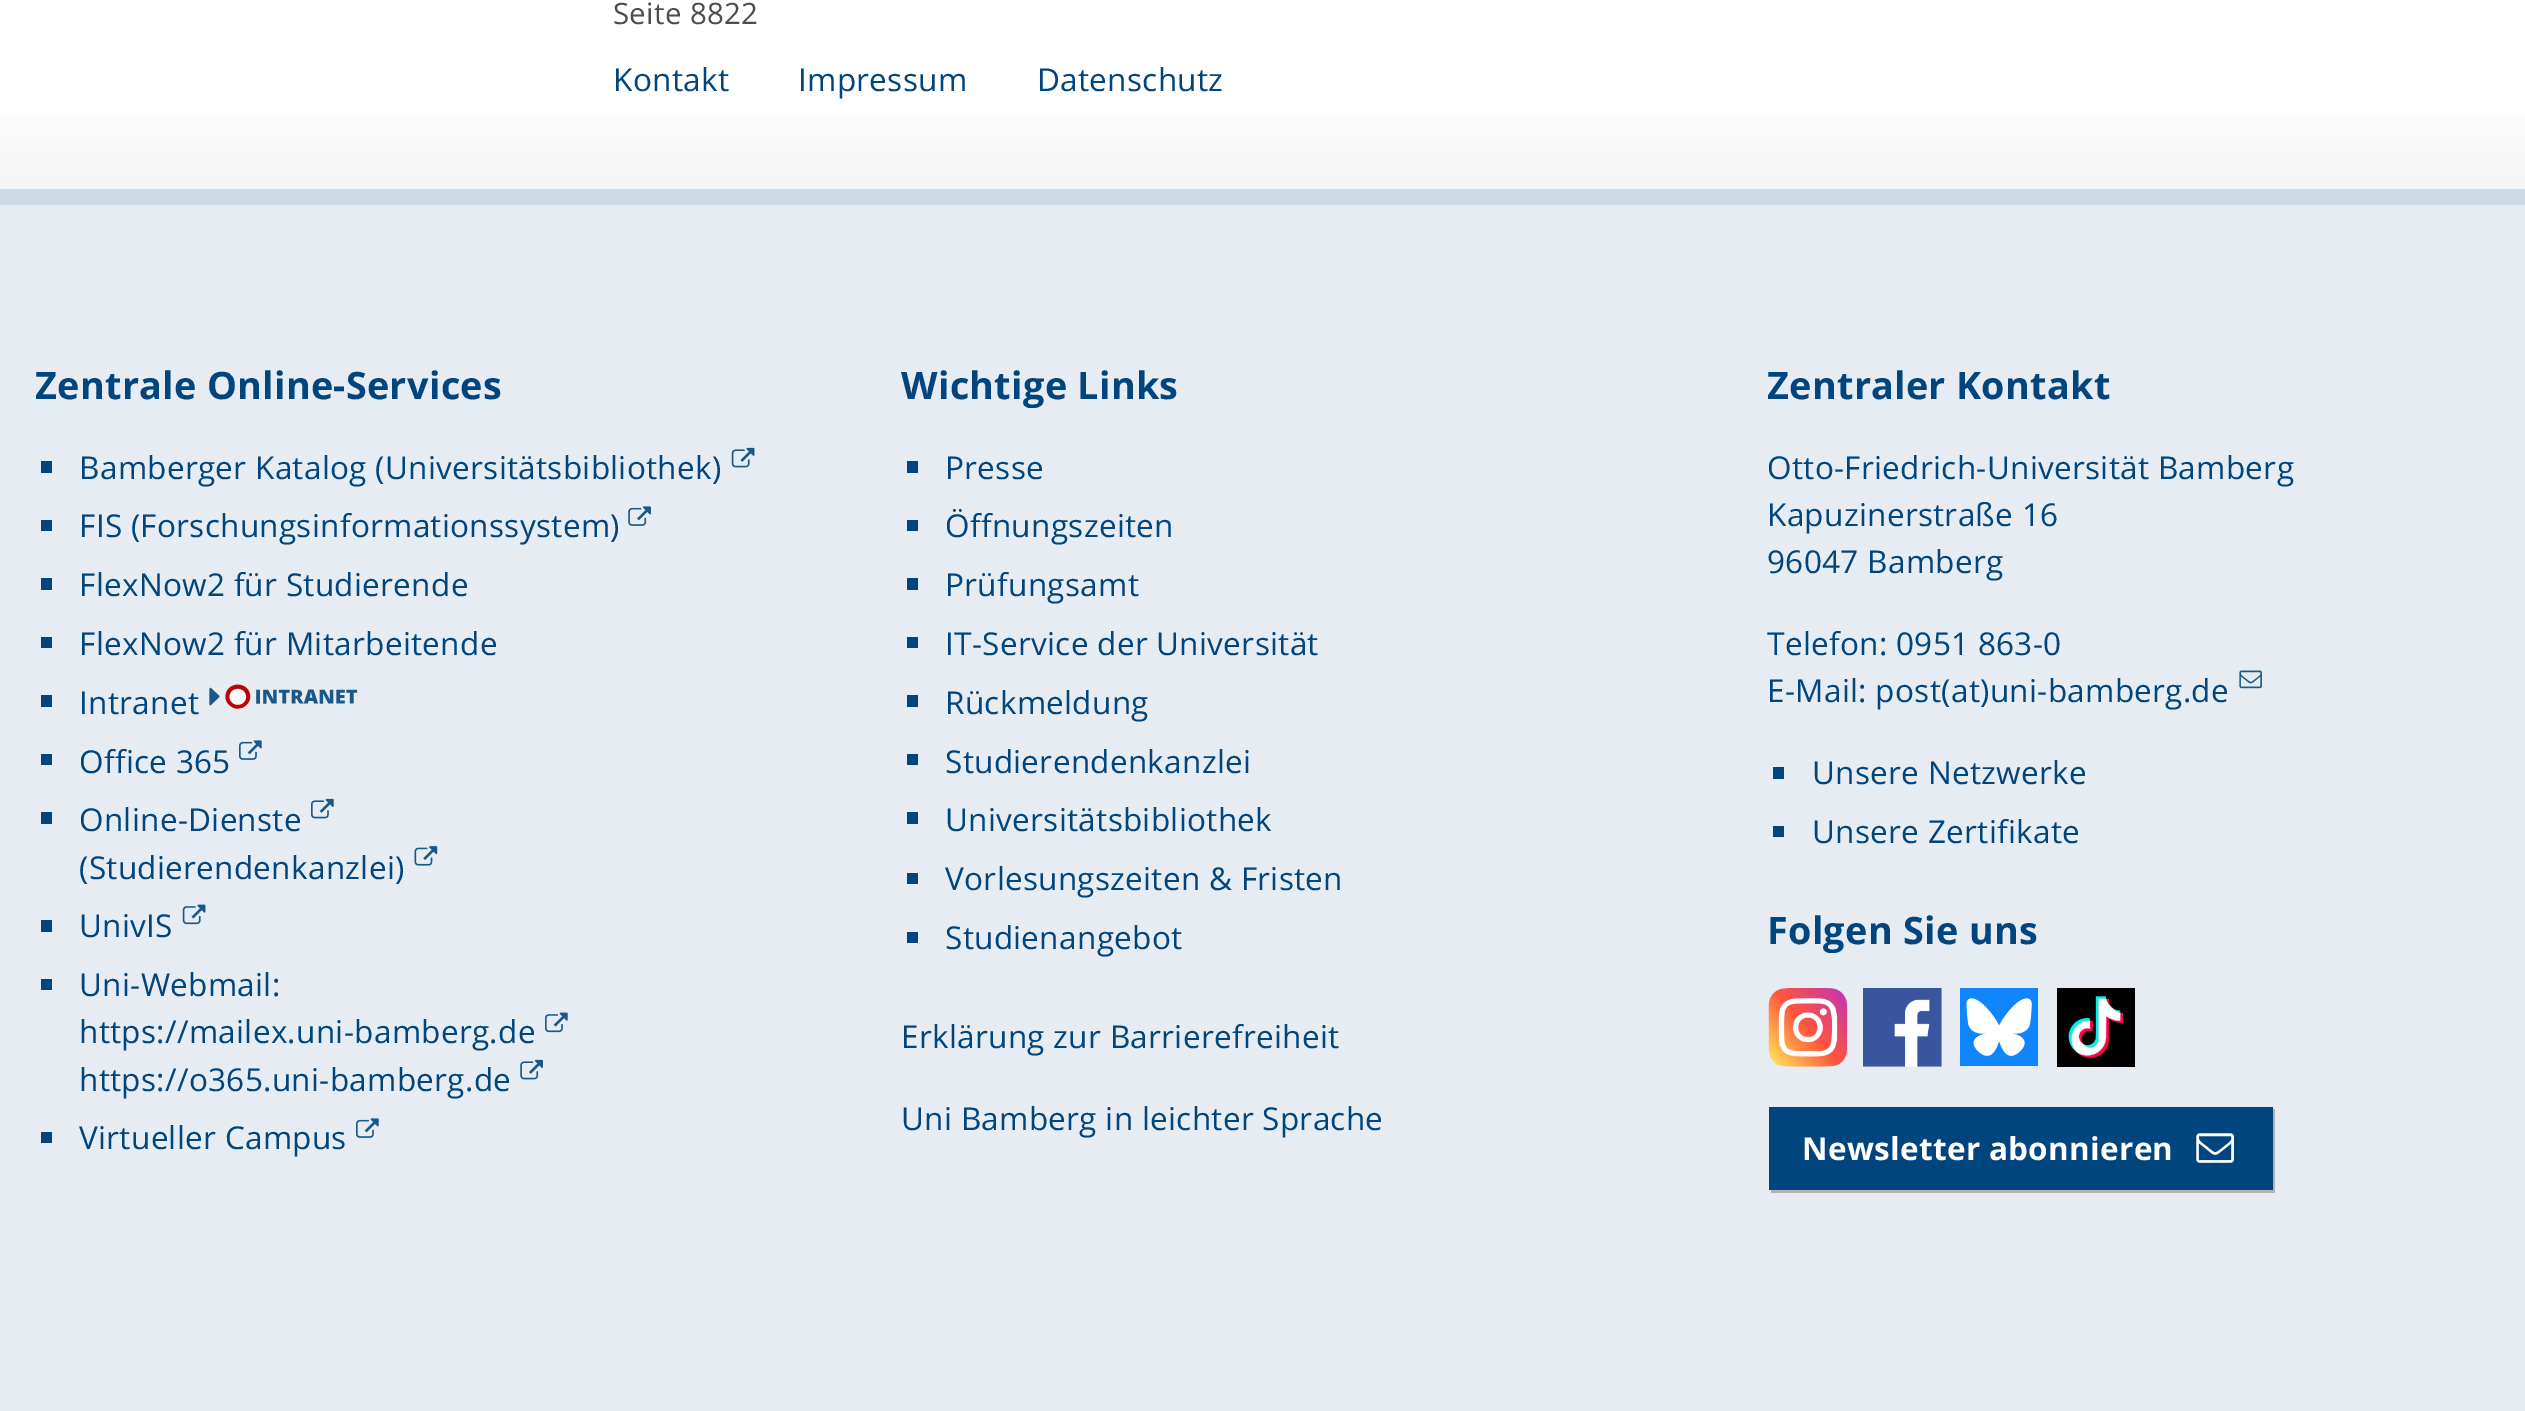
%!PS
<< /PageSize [2525 1411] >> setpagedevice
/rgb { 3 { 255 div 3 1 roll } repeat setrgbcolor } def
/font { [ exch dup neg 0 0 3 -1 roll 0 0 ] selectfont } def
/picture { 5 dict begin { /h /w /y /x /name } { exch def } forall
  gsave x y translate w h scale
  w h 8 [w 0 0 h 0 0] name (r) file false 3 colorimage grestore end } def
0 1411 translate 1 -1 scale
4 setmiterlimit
255 255 255 rgb
0 0 2525 1411 rectfill
gsave 0 115 moveto 2525 115 lineto 2525 189 lineto 0 189 lineto closepath clip newpath
<< /ShadingType 2 /ColorSpace /DeviceRGB /Coords [1263 -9 1263 189] /Extend [true true] /Function << /FunctionType 3 /Domain [0 1] /Functions [<< /FunctionType 2 /Domain [0 1] /C0 [1 1 1] /C1 [1 1 1] /N 1 >> << /FunctionType 2 /Domain [0 1] /C0 [1 1 1] /C1 [0.961 0.961 0.961] /N 1 >>] /Bounds [0.5] /Encode [0 1 0 1] >> >> shfill grestore
[
  [0 189 2525 16 204 218 229]
  [0 205 2525 1206 230 236 242]
  [41 461 11 12 0 69 125]
] { aload pop rgb rectfill } forall
(img/1.rgb) 731 447 24 21 picture
41 520 11 11 rectfill
(img/2.rgb) 628 506 23 20 picture
[
  [41 578 11 12 0 69 125]
  [41 637 11 11 0 69 125]
  [41 695 11 12 0 69 125]
] { aload pop rgb rectfill } forall
(img/3.rgb) 209 684 149 25 picture
41 754 11 11 rectfill
(img/4.rgb) 239 740 23 20 picture
41 812 11 12 rectfill
(img/5.rgb) 311 798 23 21 picture
(img/6.rgb) 414 846 24 20 picture
41 920 11 12 rectfill
(img/7.rgb) 182 904 24 21 picture
41 979 11 11 rectfill
(img/8.rgb) 545 1012 23 21 picture
(img/9.rgb) 520 1059 23 21 picture
41 1132 11 11 rectfill
(img/4.rgb) 356 1118 23 20 picture
[
  [907 461 11 12 0 69 125]
  [907 520 11 11 0 69 125]
  [907 578 11 12 0 69 125]
  [907 637 11 11 0 69 125]
  [907 695 11 12 0 69 125]
  [907 754 11 11 0 69 125]
  [907 812 11 12 0 69 125]
  [907 873 11 11 0 69 125]
  [907 932 11 11 0 69 125]
] { aload pop rgb rectfill } forall
(img/10.rgb) 2239 670 23 19 picture
1773 767 11 12 rectfill
1773 826 11 11 rectfill
(img/11.rgb) 1768 988 80 79 picture
(img/12.rgb) 1863 988 79 79 picture
(img/13.rgb) 1960 988 78 78 picture
(img/14.rgb) 2057 988 78 79 picture
179 179 179 rgb
1771 1190 moveto 1771 1193 lineto 2275 1193 lineto 2275 1109 lineto 2272 1109 lineto 2272 1190 lineto closepath fill
0 69 125 rgb
1769 1107 504 83 rectfill
(img/15.rgb) 2196 1133 38 30 picture
/OpenSans-Regular 29.5 font
77 77 77 rgb
613 24 moveto 0.3 0 (Seite 8822) ashow
/OpenSans-Regular 31.5 font
0 69 125 rgb
613 91 moveto 0.3 0 (Kontakt) ashow
798 91 moveto 0.3 0 (Impressum) ashow
1037 91 moveto 0.3 0 (Datenschutz) ashow
/OpenSans-Bold 37.75 font
35 399 moveto 0.3 0 (Zentrale Online-Services) ashow
/OpenSans-Regular 31.5 font
79 479 moveto 0.3 0 (Bamberger Katalog \(Universitätsbibliothek\)) ashow
79 537 moveto 0.3 0 (FIS \(Forschungsinformationssystem\)) ashow
79 596 moveto 0.3 0 (FlexNow2 für Studierende) ashow
79 655 moveto 0.3 0 (FlexNow2 für Mitarbeitende) ashow
79 714 moveto 0.3 0 (Intranet) ashow
79 773 moveto 0.3 0 (Office 365) ashow
79 831 moveto 0.3 0 (Online-Dienste) ashow
79 879 moveto 0.3 0 (\(Studierendenkanzlei\)) ashow
79 937 moveto 0.3 0 (UnivIS) ashow
79 996 moveto 0.3 0 (Uni-Webmail:) ashow
79 1043 moveto 0.3 0 (https://mailex.uni-bamberg.de) ashow
79 1091 moveto 0.3 0 (https://o365.uni-bamberg.de) ashow
79 1149 moveto 0.3 0 (Virtueller Campus) ashow
/OpenSans-Bold 37.75 font
901 399 moveto 0.3 0 (Wichtige Links) ashow
/OpenSans-Regular 31.5 font
945 479 moveto 0.3 0 (Presse) ashow
945 537 moveto 0.3 0 (Öffnungszeiten) ashow
945 596 moveto 0.3 0 (Prüfungsamt) ashow
945 655 moveto 0.3 0 (IT-Service der Universität) ashow
945 714 moveto 0.3 0 (Rückmeldung) ashow
945 773 moveto 0.3 0 (Studierendenkanzlei) ashow
945 831 moveto 0.3 0 (Universitätsbibliothek) ashow
945 890 moveto 0.3 0 (Vorlesungszeiten & Fristen) ashow
945 949 moveto 0.3 0 (Studienangebot) ashow
901 1048 moveto 0.3 0 (Erklärung zur Barrierefreiheit) ashow
901 1130 moveto 0.3 0 (Uni Bamberg in leichter Sprache) ashow
/OpenSans-Bold 37.75 font
1767 399 moveto 0.3 0 (Zentraler Kontakt) ashow
/OpenSans-Regular 31.5 font
1767 479 moveto 0.3 0 (Otto-Friedrich-Universität Bamberg) ashow
1767 526 moveto 0.3 0 (Kapuzinerstraße 16) ashow
1767 573 moveto 0.3 0 (96047 Bamberg) ashow
1767 655 moveto 0.3 0 (Telefon: 0951 863-0) ashow
1767 702 moveto 0.3 0 (E-Mail: post\(at\)uni-bamberg.de) ashow
1812 784 moveto 0.3 0 (Unsere Netzwerke) ashow
1812 843 moveto 0.3 0 (Unsere Zertifikate) ashow
/OpenSans-Bold 37.75 font
1767 944 moveto 0.3 0 (Folgen Sie uns) ashow
/OpenSans-Bold 31.5 font
255 255 255 rgb
1802 1160 moveto 0.3 0 (Newsletter abonnieren) ashow
showpage
